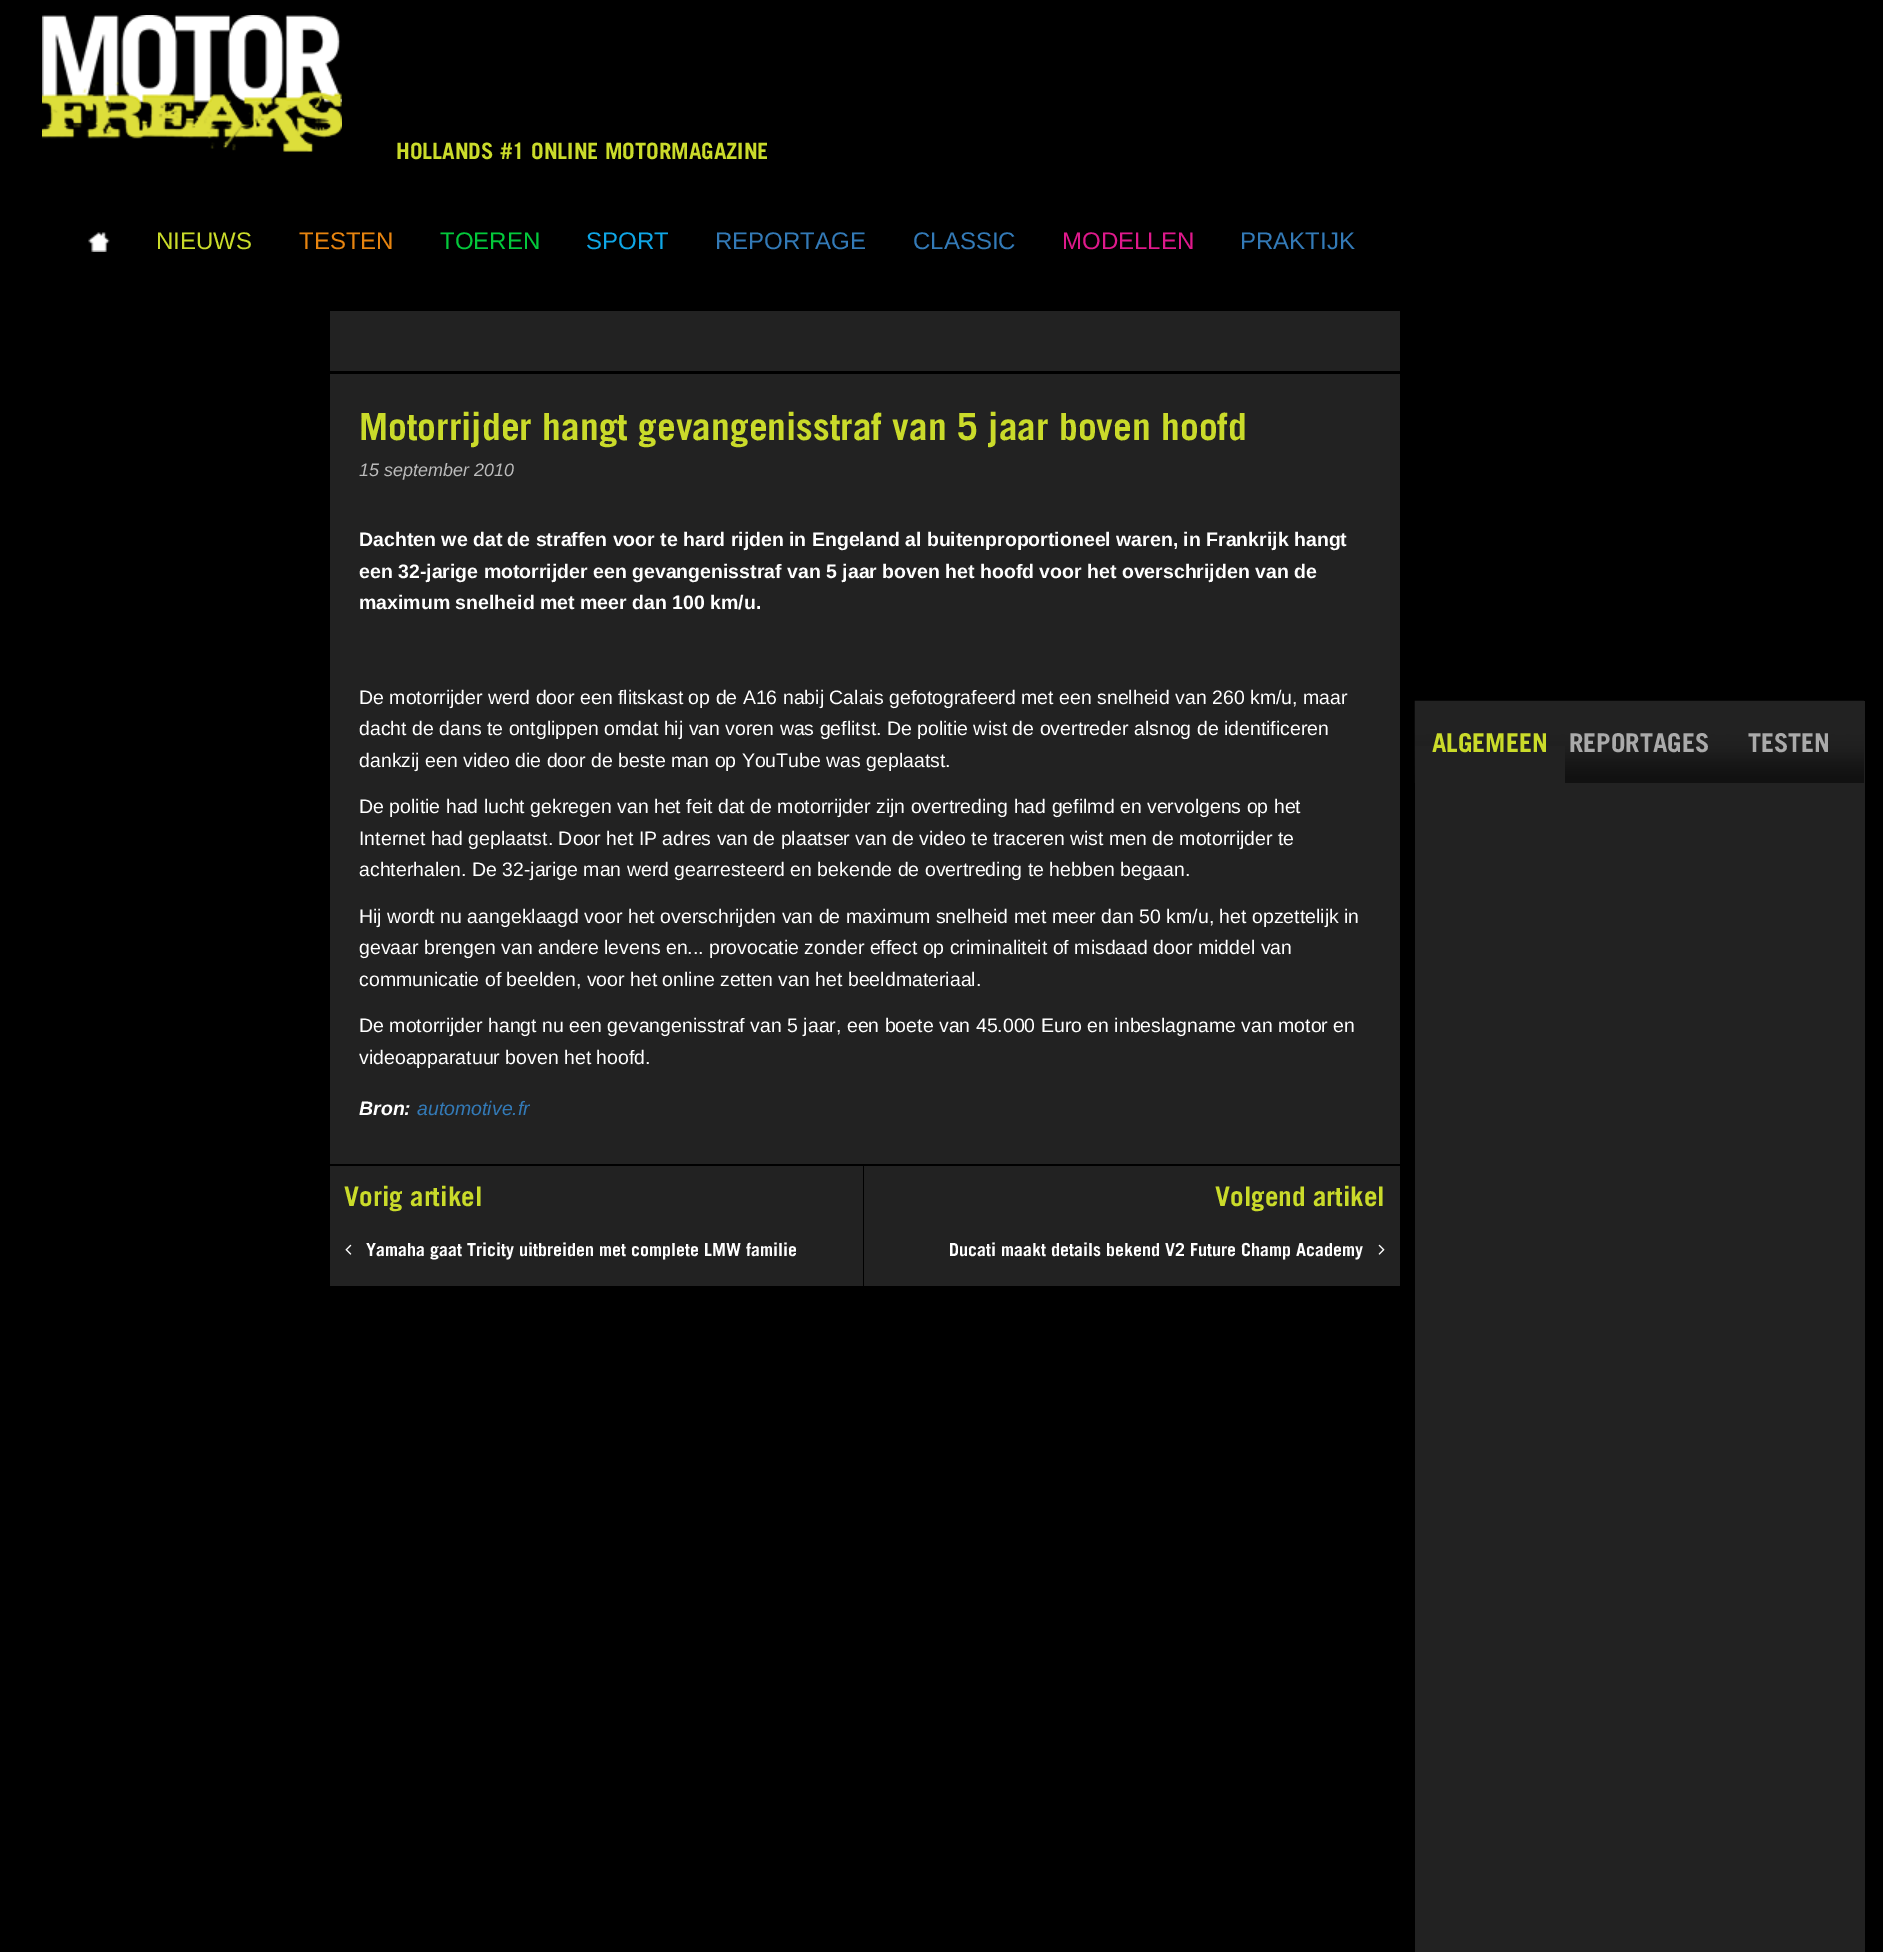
%!PS
<< /PageSize [1883 1952] >> setpagedevice
/rgb { 3 { 255 div 3 1 roll } repeat setrgbcolor } def
/font { [ exch dup neg 0 0 3 -1 roll 0 0 ] selectfont } def
/picture { 5 dict begin { /h /w /y /x /name } { exch def } forall
  gsave x y translate w h scale
  w h 8 [w 0 0 h 0 0] name (r) file false 3 colorimage grestore end } def
0 1952 translate 1 -1 scale
4 setmiterlimit
0 0 0 rgb
0 0 1883 1952 rectfill
(img/1.rgb) 42 15 300 137 picture
(img/2.rgb) 88 232 22 20 picture
[
  [330 311 1070 60 34 34 34]
  [330 374 1070 790 34 34 34]
  [330 1166 533 120 34 34 34]
] { aload pop rgb rectfill } forall
(img/3.rgb) 345 1244 7 11 picture
864 1166 536 120 rectfill
(img/4.rgb) 1378 1244 7 11 picture
1415 701 450 1251 rectfill
(img/5.rgb) 1414 700 450 83 picture
1415 746 150 37 rectfill
/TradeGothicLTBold-Bold 22.5 font
202 219 42 rgb
396 159 moveto (HOLLANDS #1 ONLINE MOTORMAGAZINE) show
/LiberationSans-Regular 24 font
156 249 moveto (NIEUWS) show
231 132 15 rgb
299 249 moveto (TESTEN) show
3 201 59 rgb
440 249 moveto (TOEREN) show
15 167 231 rgb
586 249 moveto (SPORT) show
51 122 183 rgb
715 249 moveto (REPORTAGE) show
913 249 moveto (CLASSIC) show
223 25 140 rgb
1062 249 moveto (MODELLEN) show
51 122 183 rgb
1240 249 moveto (PRAKTIJK) show
/TradeGothicLTBold-Bold 37.5 font
202 219 42 rgb
359 440 moveto (Motorrijder hangt gevangenisstraf van 5 jaar boven hoofd) show
/LiberationSans-Italic 18 font
187 187 187 rgb
359 476 moveto (15 september 2010) show
/LiberationSans-Bold 19.5 font
255 255 255 rgb
[
  [(Dachten we dat de straffen voor te hard rijden in Engeland al buitenproportioneel waren, in Frankrijk hangt) 359 546]
  [(een 32-jarige motorrijder een gevangenisstraf van 5 jaar boven het hoofd voor het overschrijden van de) 359 578]
  [(maximum snelheid met meer dan 100 km/u.) 359 609]
] { aload pop moveto show } forall
/LiberationSans-Regular 19.5 font
[
  [(De motorrijder werd door een flitskast op de A16 nabij Calais gefotografeerd met een snelheid van 260 km/u, maar) 359 704]
  [(dacht de dans te ontglippen omdat hij van voren was geflitst. De politie wist de overtreder alsnog de identificeren) 359 735]
  [(dankzij een video die door de beste man op YouTube was geplaatst.) 359 767]
  [(De politie had lucht gekregen van het feit dat de motorrijder zijn overtreding had gefilmd en vervolgens op het) 359 813]
  [(Internet had geplaatst. Door het IP adres van de plaatser van de video te traceren wist men de motorrijder te) 359 845]
  [(achterhalen. De 32-jarige man werd gearresteerd en bekende de overtreding te hebben begaan.) 359 876]
  [(Hij wordt nu aangeklaagd voor het overschrijden van de maximum snelheid met meer dan 50 km/u, het opzettelijk in) 359 923]
  [(gevaar brengen van andere levens en... provocatie zonder effect op criminaliteit of misdaad door middel van) 359 954]
  [(communicatie of beelden, voor het online zetten van het beeldmateriaal.) 359 986]
  [(De motorrijder hangt nu een gevangenisstraf van 5 jaar, een boete van 45.000 Euro en inbeslagname van motor en) 359 1032]
  [(videoapparatuur boven het hoofd.) 359 1064]
] { aload pop moveto show } forall
/LiberationSans-BoldItalic 19.5 font
359 1115 moveto (Bron:) show
/LiberationSans-Italic 19.5 font
51 122 183 rgb
417 1115 moveto (automotive.fr) show
/TradeGothicLTBold-Bold 27 font
202 219 42 rgb
344 1206 moveto (Vorig artikel) show
/TradeGothicLTBold-Bold 18 font
255 255 255 rgb
366 1256 moveto (Yamaha gaat Tricity uitbreiden met complete LMW familie) show
/TradeGothicLTBold-Bold 27 font
202 219 42 rgb
1215 1206 moveto (Volgend artikel) show
/TradeGothicLTBold-Bold 18 font
255 255 255 rgb
949 1256 moveto (Ducati maakt details bekend V2 Future Champ Academy) show
/TradeGothicLTBold-Bold 26 font
202 219 42 rgb
1432 752 moveto (ALGEMEEN) show
170 170 170 rgb
1569 752 moveto (REPORTAGES) show
1748 752 moveto (TESTEN) show
showpage
